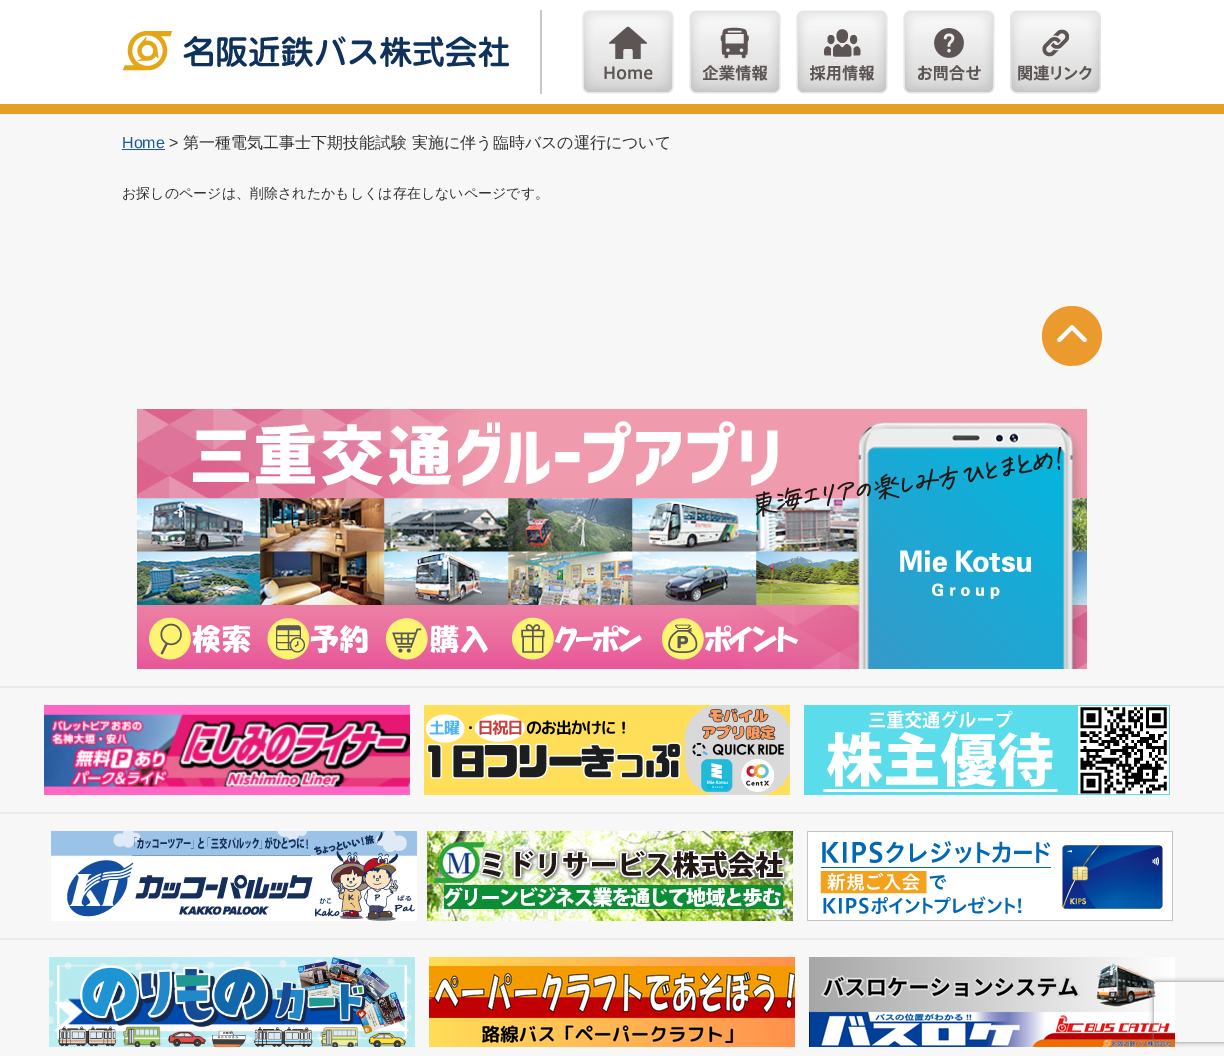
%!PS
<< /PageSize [1224 1056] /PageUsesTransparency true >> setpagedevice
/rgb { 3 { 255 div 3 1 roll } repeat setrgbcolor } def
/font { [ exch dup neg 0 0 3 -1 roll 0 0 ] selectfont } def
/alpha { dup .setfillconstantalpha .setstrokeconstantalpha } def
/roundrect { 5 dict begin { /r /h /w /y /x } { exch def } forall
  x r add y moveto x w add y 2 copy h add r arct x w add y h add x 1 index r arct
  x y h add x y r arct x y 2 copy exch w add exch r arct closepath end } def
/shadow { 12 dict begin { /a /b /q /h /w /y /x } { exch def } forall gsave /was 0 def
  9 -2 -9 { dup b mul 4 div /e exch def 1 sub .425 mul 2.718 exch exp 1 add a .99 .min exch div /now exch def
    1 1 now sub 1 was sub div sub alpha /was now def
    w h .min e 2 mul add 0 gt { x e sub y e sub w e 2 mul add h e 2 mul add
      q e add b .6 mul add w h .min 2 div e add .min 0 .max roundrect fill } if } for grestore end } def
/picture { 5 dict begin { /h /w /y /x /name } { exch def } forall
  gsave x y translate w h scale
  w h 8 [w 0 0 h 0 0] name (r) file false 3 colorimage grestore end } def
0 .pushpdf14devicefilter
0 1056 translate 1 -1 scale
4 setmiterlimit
255 255 255 rgb
0 0 1224 1056 rectfill
228 160 37 rgb
0 104 1224 10 rectfill
(img/1.rgb) 123 31 386 40 picture
199 199 199 rgb
540 10 2 84 rectfill
(img/2.rgb) 582 10 92 84 picture
(img/3.rgb) 689 10 92 84 picture
(img/4.rgb) 796 10 92 84 picture
(img/5.rgb) 903 10 92 84 picture
(img/6.rgb) 1010 10 91 84 picture
247 247 247 rgb
0 114 1224 942 rectfill
26 88 158 rgb
122 149 43 1 rectfill
(img/7.rgb) 1042 306 60 60 picture
234 234 234 rgb
0 686 1224 2 rectfill
(img/8.rgb) 137 409 950 260 picture
0 812 1224 2 rectfill
(img/9.rgb) 44 705 366 90 picture
(img/10.rgb) 424 705 366 90 picture
(img/11.rgb) 804 705 366 90 picture
0 938 1224 2 rectfill
(img/12.rgb) 51 831 366 90 picture
(img/13.rgb) 427 831 366 90 picture
(img/14.rgb) 807 831 366 90 picture
(img/15.rgb) 49 957 366 90 picture
(img/16.rgb) 429 957 366 90 picture
(img/17.rgb) 809 957 366 90 picture
gsave
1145 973 moveto 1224 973 lineto 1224 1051 lineto 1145 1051 lineto closepath 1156 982 moveto 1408 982 lineto 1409 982 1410 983 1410 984 curveto 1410 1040 lineto 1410 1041 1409 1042 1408 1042 curveto 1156 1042 lineto 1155 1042 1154 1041 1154 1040 curveto 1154 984 lineto 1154 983 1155 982 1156 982 curveto closepath eoclip newpath
128 128 128 rgb
1154 982 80 60 2 2.5 1 shadow
grestore
/LiberationSans-Regular 16 font
26 88 158 rgb
122 148 moveto (Home) show
50 50 50 rgb
169 148 moveto (>) show
/WenQuanYiZenHei-Medium 16 font
183 148 moveto (第一種電気工事士下期技能試験 実施に伴う臨時バスの運行について) show
/WenQuanYiZenHei-Medium 14 font
122 198 moveto (お探しのページは、削除されたかもしくは存在しないページです。) show
.poppdf14devicefilter showpage
